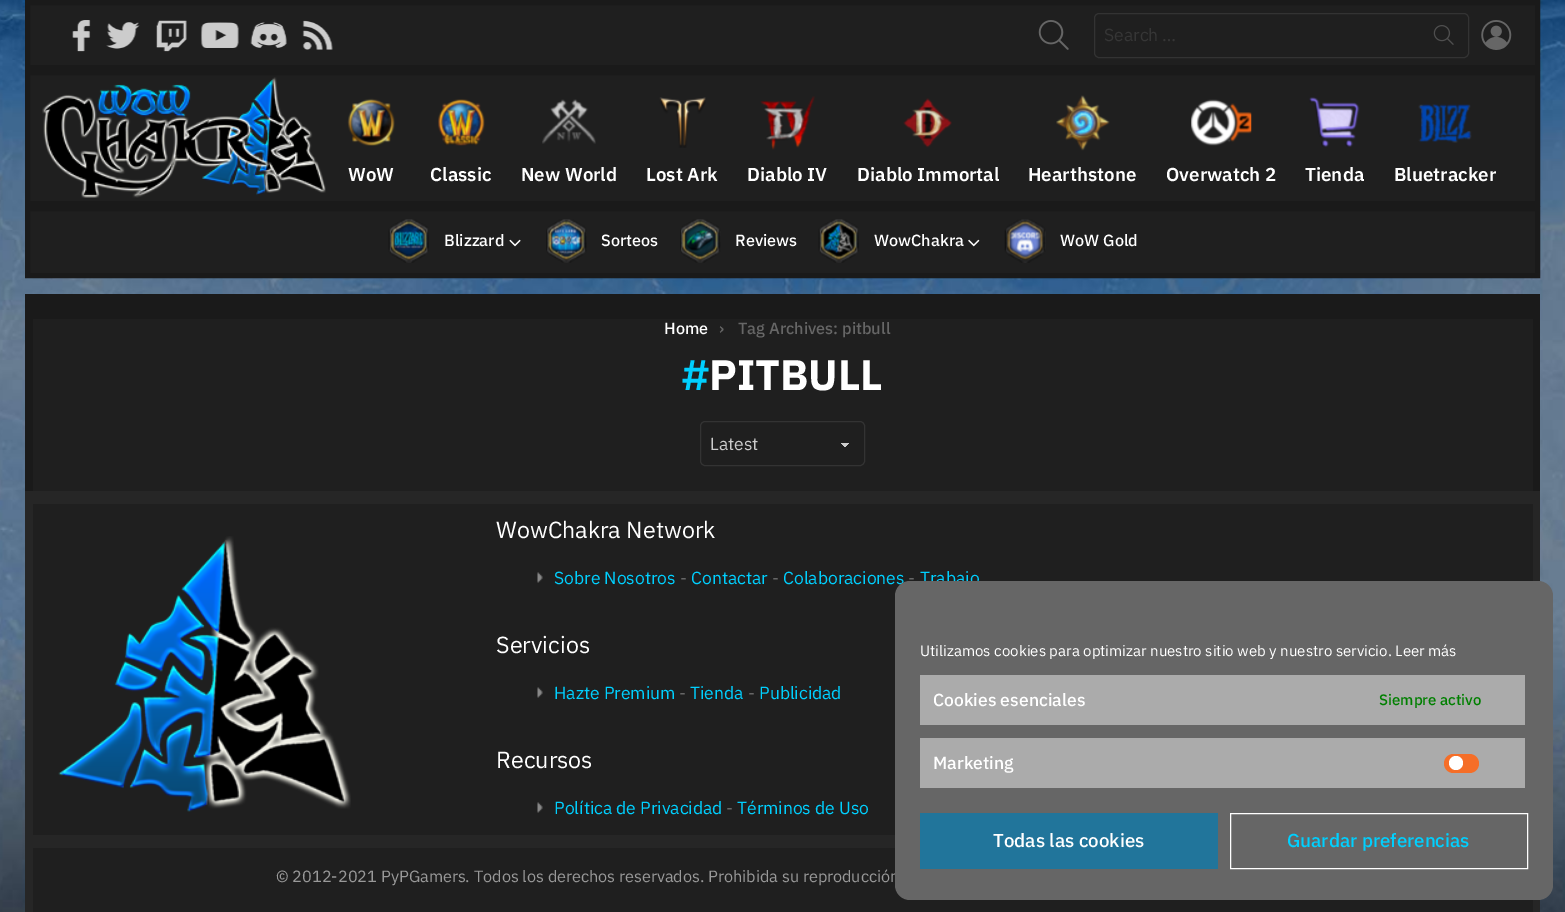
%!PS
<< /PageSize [1565 912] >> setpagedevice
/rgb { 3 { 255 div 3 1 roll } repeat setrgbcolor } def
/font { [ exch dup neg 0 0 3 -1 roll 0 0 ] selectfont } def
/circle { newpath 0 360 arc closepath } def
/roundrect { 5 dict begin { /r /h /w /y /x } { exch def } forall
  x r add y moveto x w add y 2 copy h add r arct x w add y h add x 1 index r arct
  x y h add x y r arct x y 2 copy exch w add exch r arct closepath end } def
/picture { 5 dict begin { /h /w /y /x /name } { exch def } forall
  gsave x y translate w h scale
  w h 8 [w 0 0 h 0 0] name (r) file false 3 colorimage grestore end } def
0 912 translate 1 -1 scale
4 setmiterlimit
255 255 255 rgb
0 0 1565 912 rectfill
(img/1.rgb) 0 0 1565 912 picture
31 31 31 rgb
27.5 2.5 moveto 1537.5 2.5 lineto 1537.5 67.5 lineto 27.5 67.5 lineto closepath gsave fill grestore
26 26 26 rgb
5 setlinewidth
stroke
(img/2.rgb) 72 20 19 32 picture
(img/3.rgb) 106 22 34 27 picture
(img/4.rgb) 156 20 31 32 picture
(img/5.rgb) 200 22 39 26 picture
(img/6.rgb) 250 22 37 26 picture
(img/7.rgb) 302 20 31 30 picture
(img/8.rgb) 1038 20 31 30 picture
51 51 51 rgb
1 setlinewidth
1094.5 13.5 374 44 4.5 roundrect stroke
(img/9.rgb) 1433 25 21 20 picture
(img/10.rgb) 1481 20 31 30 picture
31 31 31 rgb
27.5 72.5 moveto 1537.5 72.5 lineto 1537.5 203.5 lineto 27.5 203.5 lineto closepath gsave fill grestore
26 26 26 rgb
5 setlinewidth
stroke
(img/11.rgb) 42 77 284 121 picture
(img/12.rgb) 347 98 48 48 picture
(img/13.rgb) 438 99 47 47 picture
(img/14.rgb) 542 99 54 45 picture
(img/15.rgb) 659 97 47 51 picture
(img/16.rgb) 760 96 55 54 picture
(img/17.rgb) 903 98 49 50 picture
(img/18.rgb) 1056 95 54 56 picture
(img/19.rgb) 1191 99 61 47 picture
(img/20.rgb) 1309 97 51 51 picture
(img/21.rgb) 1418 104 54 39 picture
31 31 31 rgb
27.5 208.5 moveto 1537.5 208.5 lineto 1537.5 275.5 lineto 27.5 275.5 lineto closepath gsave fill grestore
26 26 26 rgb
stroke
(img/22.rgb) 388 219 41 44 picture
(img/23.rgb) 509 239 12 8 picture
(img/24.rgb) 546 219 41 44 picture
(img/25.rgb) 680 219 41 44 picture
(img/26.rgb) 818 219 41 44 picture
(img/27.rgb) 968 239 12 8 picture
(img/28.rgb) 1004 219 42 44 picture
25 294 1515 197 rectfill
31 31 31 rgb
33 319 1500 172 rectfill
gsave 845 443 moveto 851 443 lineto 851 447 lineto 845 447 lineto closepath clip newpath
<< /ShadingType 2 /ColorSpace /DeviceRGB /Coords [845 442 851 448] /Extend [true true] /Function << /FunctionType 3 /Domain [0 1] /Functions [<< /FunctionType 2 /Domain [0 1] /C0 [0.8 0.8 0.8] /C1 [0.8 0.8 0.8] /N 1 >> << /FunctionType 2 /Domain [0 1] /C0 [0.122 0.122 0.122] /C1 [0.122 0.122 0.122] /N 1 >>] /Bounds [0.5] /Encode [0 1 0 1] >> >> shfill grestore
gsave 839 443 moveto 845 443 lineto 845 447 lineto 839 447 lineto closepath clip newpath
<< /ShadingType 2 /ColorSpace /DeviceRGB /Coords [839 448 845 442] /Extend [true true] /Function << /FunctionType 3 /Domain [0 1] /Functions [<< /FunctionType 2 /Domain [0 1] /C0 [0.122 0.122 0.122] /C1 [0.122 0.122 0.122] /N 1 >> << /FunctionType 2 /Domain [0 1] /C0 [0.8 0.8 0.8] /C1 [0.8 0.8 0.8] /N 1 >>] /Bounds [0.5] /Encode [0 1 0 1] >> >> shfill grestore
51 51 51 rgb
1 setlinewidth
700.5 421.5 164 44 4.5 roundrect stroke
38 38 38 rgb
25 491 1515 421 rectfill
31 31 31 rgb
33 504 1500 331 rectfill
(img/29.rgb) 58 536 293 276 picture
(img/30.rgb) 537 572 6 11 picture
(img/30.rgb) 537 687 6 11 picture
(img/30.rgb) 537 802 6 11 picture
33 848 1500 64 rectfill
/IBMPlexSans-Regular 17.5 font
54 54 54 rgb
1104 41 moveto (Search …) show
/IBMPlexSans-SemiBold 18.75 font
255 255 255 rgb
[
  [(WoW) 348 181]
  [(Classic) 430 181]
  [(New World) 521 181]
  [(Lost Ark) 646 181]
  [(Diablo IV) 747 181]
  [(Diablo Immortal) 857 181]
  [(Hearthstone) 1028 181]
  [(Overwatch 2) 1166 181]
  [(Tienda) 1305 181]
  [(Bluetracker) 1394 181]
] { aload pop moveto show } forall
/IBMPlexSans-Medium 16.25 font
[
  [(Blizzard) 444 246]
  [(Sorteos) 601 246]
  [(Reviews) 735 246]
  [(WowChakra) 874 246]
  [(WoW Gold) 1060 246]
  [(Home) 664 334]
] { aload pop moveto show } forall
102 102 102 rgb
719 334 moveto (›) show
738 334 moveto (Tag Archives: pitbull) show
/IBMPlexSans-Bold 42.5 font
0 208 255 rgb
682 390 moveto (#) show
255 255 255 rgb
709 390 moveto (PITBULL) show
/IBMPlexSans-Regular 17.5 font
204 204 204 rgb
710 450 moveto (Latest) show
/IBMPlexSans-Regular 23.25 font
255 255 255 rgb
496 538 moveto (WowChakra Network) show
/IBMPlexSans-Regular 17.5 font
0 208 255 rgb
554 584 moveto (Sobre Nosotros) show
102 102 102 rgb
680 584 moveto (-) show
0 208 255 rgb
691 584 moveto (Contactar) show
102 102 102 rgb
772 584 moveto (-) show
0 208 255 rgb
783 584 moveto (Colaboraciones) show
102 102 102 rgb
908 584 moveto (-) show
0 208 255 rgb
920 584 moveto (Trabajo) show
/IBMPlexSans-Regular 23.25 font
255 255 255 rgb
496 653 moveto (Servicios) show
/IBMPlexSans-Regular 17.5 font
0 208 255 rgb
554 699 moveto (Hazte Premium) show
102 102 102 rgb
679 699 moveto (-) show
0 208 255 rgb
690 699 moveto (Tienda) show
102 102 102 rgb
748 699 moveto (-) show
0 208 255 rgb
759 699 moveto (Publicidad) show
/IBMPlexSans-Regular 23.25 font
255 255 255 rgb
496 768 moveto (Recursos) show
/IBMPlexSans-Regular 17.5 font
0 208 255 rgb
554 814 moveto (Política de Privacidad) show
102 102 102 rgb
726 814 moveto (-) show
0 208 255 rgb
737 814 moveto (Términos de Uso) show
/IBMPlexSans-Regular 16.25 font
153 153 153 rgb
276 882 moveto (© 2012-2021 PyPGamers. Todos los derechos reservados. Prohibida su reproducción) show
102 102 102 rgb
895 581 658 319 15 roundrect fill
/IBMPlexSans-Regular 15 font
255 255 255 rgb
920 656 moveto (Utilizamos cookies para optimizar nuestro sitio web y nuestro servicio. Leer más) show
171 171 171 rgb
920 675 605 50 rectfill
/IBMPlexSans-Medium 17.5 font
255 255 255 rgb
933 706 moveto (Cookies esenciales) show
/IBMPlexSans-Medium 15 font
0 128 0 rgb
1379 705 moveto (Siempre activo) show
171 171 171 rgb
920 738 605 50 rectfill
/IBMPlexSans-Medium 17.5 font
255 255 255 rgb
933 769 moveto (Marketing) show
245 110 40 rgb
1444 754 35 19 9.5 roundrect fill
255 255 255 rgb
1456 763 7 circle fill
33 117 155 rgb
920 813 298 56 rectfill
/IBMPlexSans-Medium 18.75 font
255 255 255 rgb
993 847 moveto (Todas las cookies) show
1230.5 813.5 297 55 rectstroke
0 208 255 rgb
1287 847 moveto (Guardar preferencias) show
showpage
